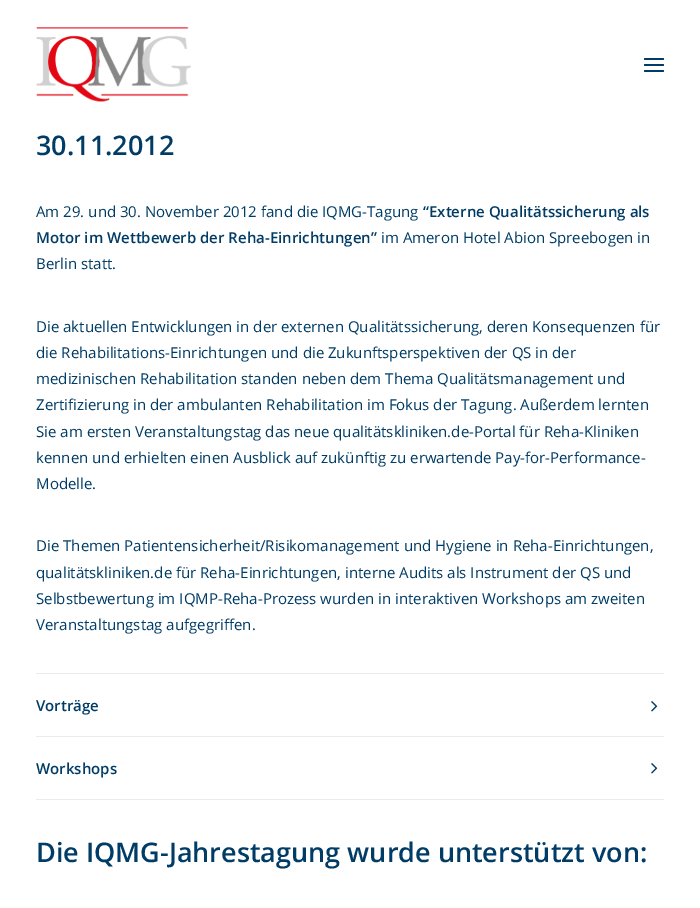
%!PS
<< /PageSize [700 908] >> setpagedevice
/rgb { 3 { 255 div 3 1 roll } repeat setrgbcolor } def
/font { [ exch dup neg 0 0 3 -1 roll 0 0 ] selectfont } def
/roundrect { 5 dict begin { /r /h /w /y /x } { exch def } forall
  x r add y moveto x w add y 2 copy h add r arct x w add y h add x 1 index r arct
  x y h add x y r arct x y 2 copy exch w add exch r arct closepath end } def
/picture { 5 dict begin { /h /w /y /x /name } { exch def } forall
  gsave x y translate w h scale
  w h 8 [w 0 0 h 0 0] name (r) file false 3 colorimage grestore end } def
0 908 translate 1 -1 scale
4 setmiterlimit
255 255 255 rgb
0 0 700 908 rectfill
(img/1.rgb) 36 27 155 75 picture
0 60 102 rgb
644 64 20 2 1 roundrect fill
644 58 20 2 1 roundrect fill
644 70 20 2 1 roundrect fill
234 234 234 rgb
36 673 628 1 rectfill
(img/2.rgb) 651 701 7 11 picture
36 736 628 1 rectfill
36 799 628 1 rectfill
(img/2.rgb) 651 763 7 11 picture
/OpenSans-SemiBold 27 font
0 60 102 rgb
36 155 moveto (30.11.2012) show
/OpenSans-Regular 15 font
36 217 moveto (Am 29. und 30. November 2012 fand die IQMG-Tagung) show
/OpenSans-SemiBold 15 font
423 217 moveto (“Externe Qualitätssicherung als) show
36 243 moveto (Motor im Wettbewerb der Reha-Einrichtungen”) show
/OpenSans-Regular 15 font
[
  [(im Ameron Hotel Abion Spreebogen in) 381 243]
  [(Berlin statt.) 36 269]
  [(Die aktuellen Entwicklungen in der externen Qualitätssicherung, deren Konsequenzen für) 36 332]
  [(die Rehabilitations-Einrichtungen und die Zukunftsperspektiven der QS in der) 36 358]
  [(medizinischen Rehabilitation standen neben dem Thema Qualitätsmanagement und) 36 384]
  [(Zertifizierung in der ambulanten Rehabilitation im Fokus der Tagung. Außerdem lernten) 36 410]
  [(Sie am ersten Veranstaltungstag das neue qualitätskliniken.de-Portal für Reha-Kliniken) 36 437]
  [(kennen und erhielten einen Ausblick auf zukünftig zu erwartende Pay-for-Performance-) 36 463]
  [(Modelle.) 36 489]
  [(Die Themen Patientensicherheit/Risikomanagement und Hygiene in Reha-Einrichtungen,) 36 551]
  [(qualitätskliniken.de für Reha-Einrichtungen, interne Audits als Instrument der QS und) 36 578]
  [(Selbstbewertung im IQMP-Reha-Prozess wurden in interaktiven Workshops am zweiten) 36 604]
  [(Veranstaltungstag aufgegriffen.) 36 630]
] { aload pop moveto show } forall
/OpenSans-SemiBold 15 font
36 711 moveto (Vorträge) show
36 774 moveto (Workshops) show
/OpenSans-SemiBold 27 font
36 862 moveto (Die IQMG-Jahrestagung wurde unterstützt von:) show
showpage
